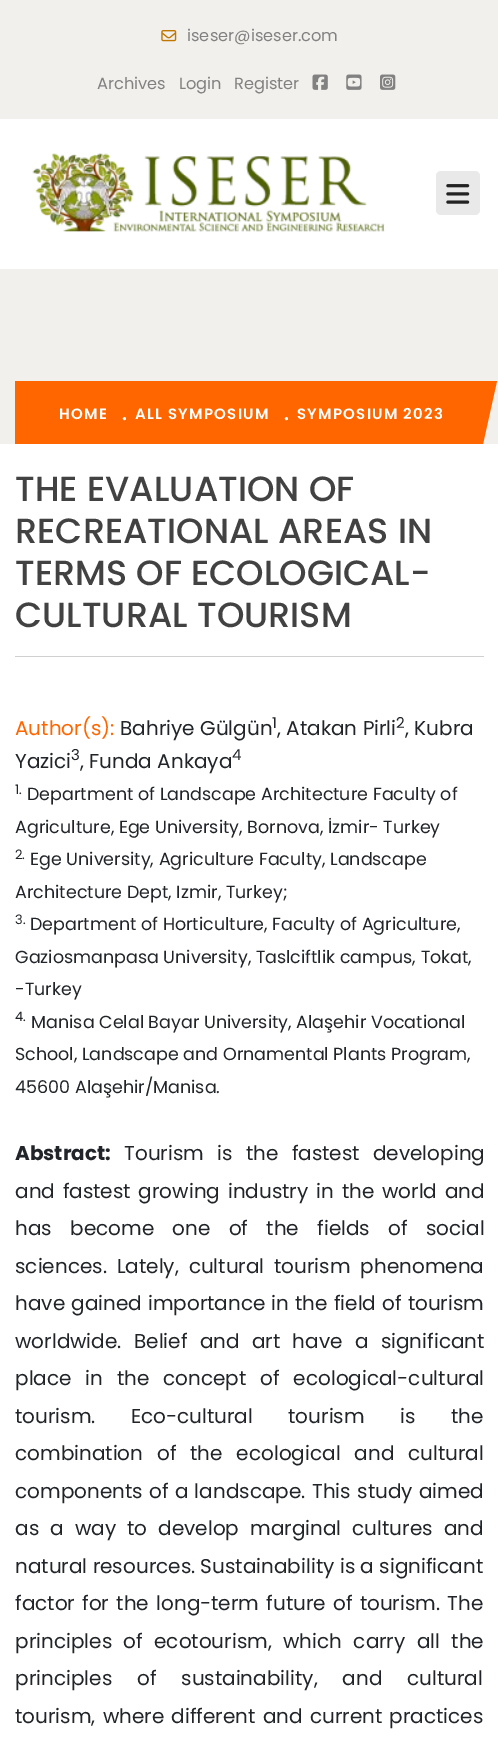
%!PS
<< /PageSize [498 1742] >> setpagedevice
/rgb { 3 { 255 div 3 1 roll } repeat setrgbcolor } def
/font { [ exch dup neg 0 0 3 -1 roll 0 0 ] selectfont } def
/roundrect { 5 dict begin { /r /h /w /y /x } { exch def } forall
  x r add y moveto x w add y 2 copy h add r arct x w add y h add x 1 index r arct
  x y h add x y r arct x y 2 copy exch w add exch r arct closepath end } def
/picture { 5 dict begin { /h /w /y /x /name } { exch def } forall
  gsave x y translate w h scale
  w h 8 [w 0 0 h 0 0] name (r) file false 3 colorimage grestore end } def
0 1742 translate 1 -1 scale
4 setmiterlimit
255 255 255 rgb
0 0 498 1742 rectfill
242 240 236 rgb
0 0 498 119 rectfill
(img/1.rgb) 161 30 16 12 picture
(img/2.rgb) 312 74 16 16 picture
(img/3.rgb) 346 74 16 16 picture
(img/4.rgb) 380 74 16 16 picture
(img/5.rgb) 32 153 353 79 picture
233 233 233 rgb
436 171 44 44 5 roundrect fill
(img/6.rgb) 446 184 24 20 picture
242 240 236 rgb
0 269 498 175 rectfill
255 102 0 rgb
30 381 moveto 497 381 lineto 483 444 lineto 16 444 lineto closepath fill
15 381 15 63 rectfill
208 208 208 rgb
15 656 469 1 rectfill
/Poppins-Regular 16.25 font
129 129 129 rgb
[
  [(iseser@iseser.com) 187 41]
  [(Archives) 97 89]
  [(Login) 179 89]
  [(Register) 234 89]
] { aload pop moveto show } forall
/Poppins-SemiBold 15 font
255 255 255 rgb
59 419 moveto 1.25 0 (HOME) ashow
/Poppins-SemiBold 19 font
122 420 moveto 1.25 0 (.) ashow
/Poppins-SemiBold 15 font
135 419 moveto 1.25 0 (ALL SYMPOSIUM) ashow
/Poppins-SemiBold 19 font
284 420 moveto 1.25 0 (.) ashow
/Poppins-SemiBold 15 font
297 419 moveto 1.25 0 (SYMPOSIUM 2023) ashow
/Poppins-Medium 35 font
66 66 66 rgb
[
  [(THE EVALUATION OF) 15 501]
  [(RECREATIONAL AREAS IN) 15 543]
  [(TERMS OF ECOLOGICAL-) 15 585]
  [(CULTURAL TOURISM) 15 627]
] { aload pop moveto show } forall
/Poppins-Regular 20 font
255 102 0 rgb
15 735 moveto (Author\(s\):) show
33 37 41 rgb
120 735 moveto (Bahriye Gülgün) show
/Poppins-Regular 15 font
272 728 moveto (1) show
/Poppins-Regular 20 font
277 735 moveto (, Atakan Pirli) show
/Poppins-Regular 15 font
396 728 moveto (2) show
/Poppins-Regular 20 font
405 735 moveto (, Kubra) show
15 768 moveto (Yazici) show
/Poppins-Regular 15 font
71 760 moveto (3) show
/Poppins-Regular 20 font
80 768 moveto (, Funda Ankaya) show
/Poppins-Regular 15 font
232 760 moveto (4) show
/Poppins-Regular 13 font
15 794 moveto (1.) show
/Poppins-Regular 17.5 font
27 800 moveto (Department of Landscape Architecture Faculty of) show
15 833 moveto (Agriculture, Ege University, Bornova, İzmir- Turkey) show
/Poppins-Regular 13 font
15 859 moveto (2.) show
/Poppins-Regular 17.5 font
30 865 moveto (Ege University, Agriculture Faculty, Landscape) show
15 898 moveto (Architecture Dept, Izmir, Turkey;) show
/Poppins-Regular 13 font
15 924 moveto (3.) show
/Poppins-Regular 17.5 font
[
  [(Department of Horticulture, Faculty of Agriculture,) 30 930]
  [(Gaziosmanpasa University, Taslciftlik campus, Tokat,) 15 963]
  [(-Turkey) 15 995]
] { aload pop moveto show } forall
/Poppins-Regular 13 font
15 1021 moveto (4.) show
/Poppins-Regular 17.5 font
[
  [(Manisa Celal Bayar University, Alaşehir Vocational) 31 1028]
  [(School, Landscape and Ornamental Plants Program,) 15 1060]
  [(45600 Alaşehir/Manisa.) 15 1093]
] { aload pop moveto show } forall
/Poppins-Bold 20 font
15 1160 moveto (Abstract:) show
/Poppins-Regular 20 font
124 1160 moveto 8 0 32 (Tourism is the fastest developing) widthshow
15 1198 moveto 2.5 0 32 (and fastest growing industry in the world and) widthshow
15 1235 moveto 13 0 32 (has become one of the fields of social) widthshow
15 1273 moveto 4.5 0 32 (sciences. Lately, cultural tourism phenomena) widthshow
15 1310 moveto 0.75 0 32 (have gained importance in the field of tourism) widthshow
15 1348 moveto 7 0 32 (worldwide. Belief and art have a significant) widthshow
15 1385 moveto 8.5 0 32 (place in the concept of ecological-cultural) widthshow
15 1423 moveto 30 0 32 (tourism. Eco-cultural tourism is the) widthshow
15 1460 moveto 8.5 0 32 (combination of the ecological and cultural) widthshow
15 1498 moveto 1 0 32 (components of a landscape. This study aimed) widthshow
15 1535 moveto 5.75 0 32 (as a way to develop marginal cultures and) widthshow
15 1573 moveto (natural resources. Sustainability is a significant) show
15 1610 moveto 2 0 32 (factor for the long-term future of tourism. The) widthshow
15 1648 moveto 6 0 32 (principles of ecotourism, which carry all the) widthshow
15 1685 moveto 19.5 0 32 (principles of sustainability, and cultural) widthshow
15 1723 moveto 2 0 32 (tourism, where different and current practices) widthshow
showpage
